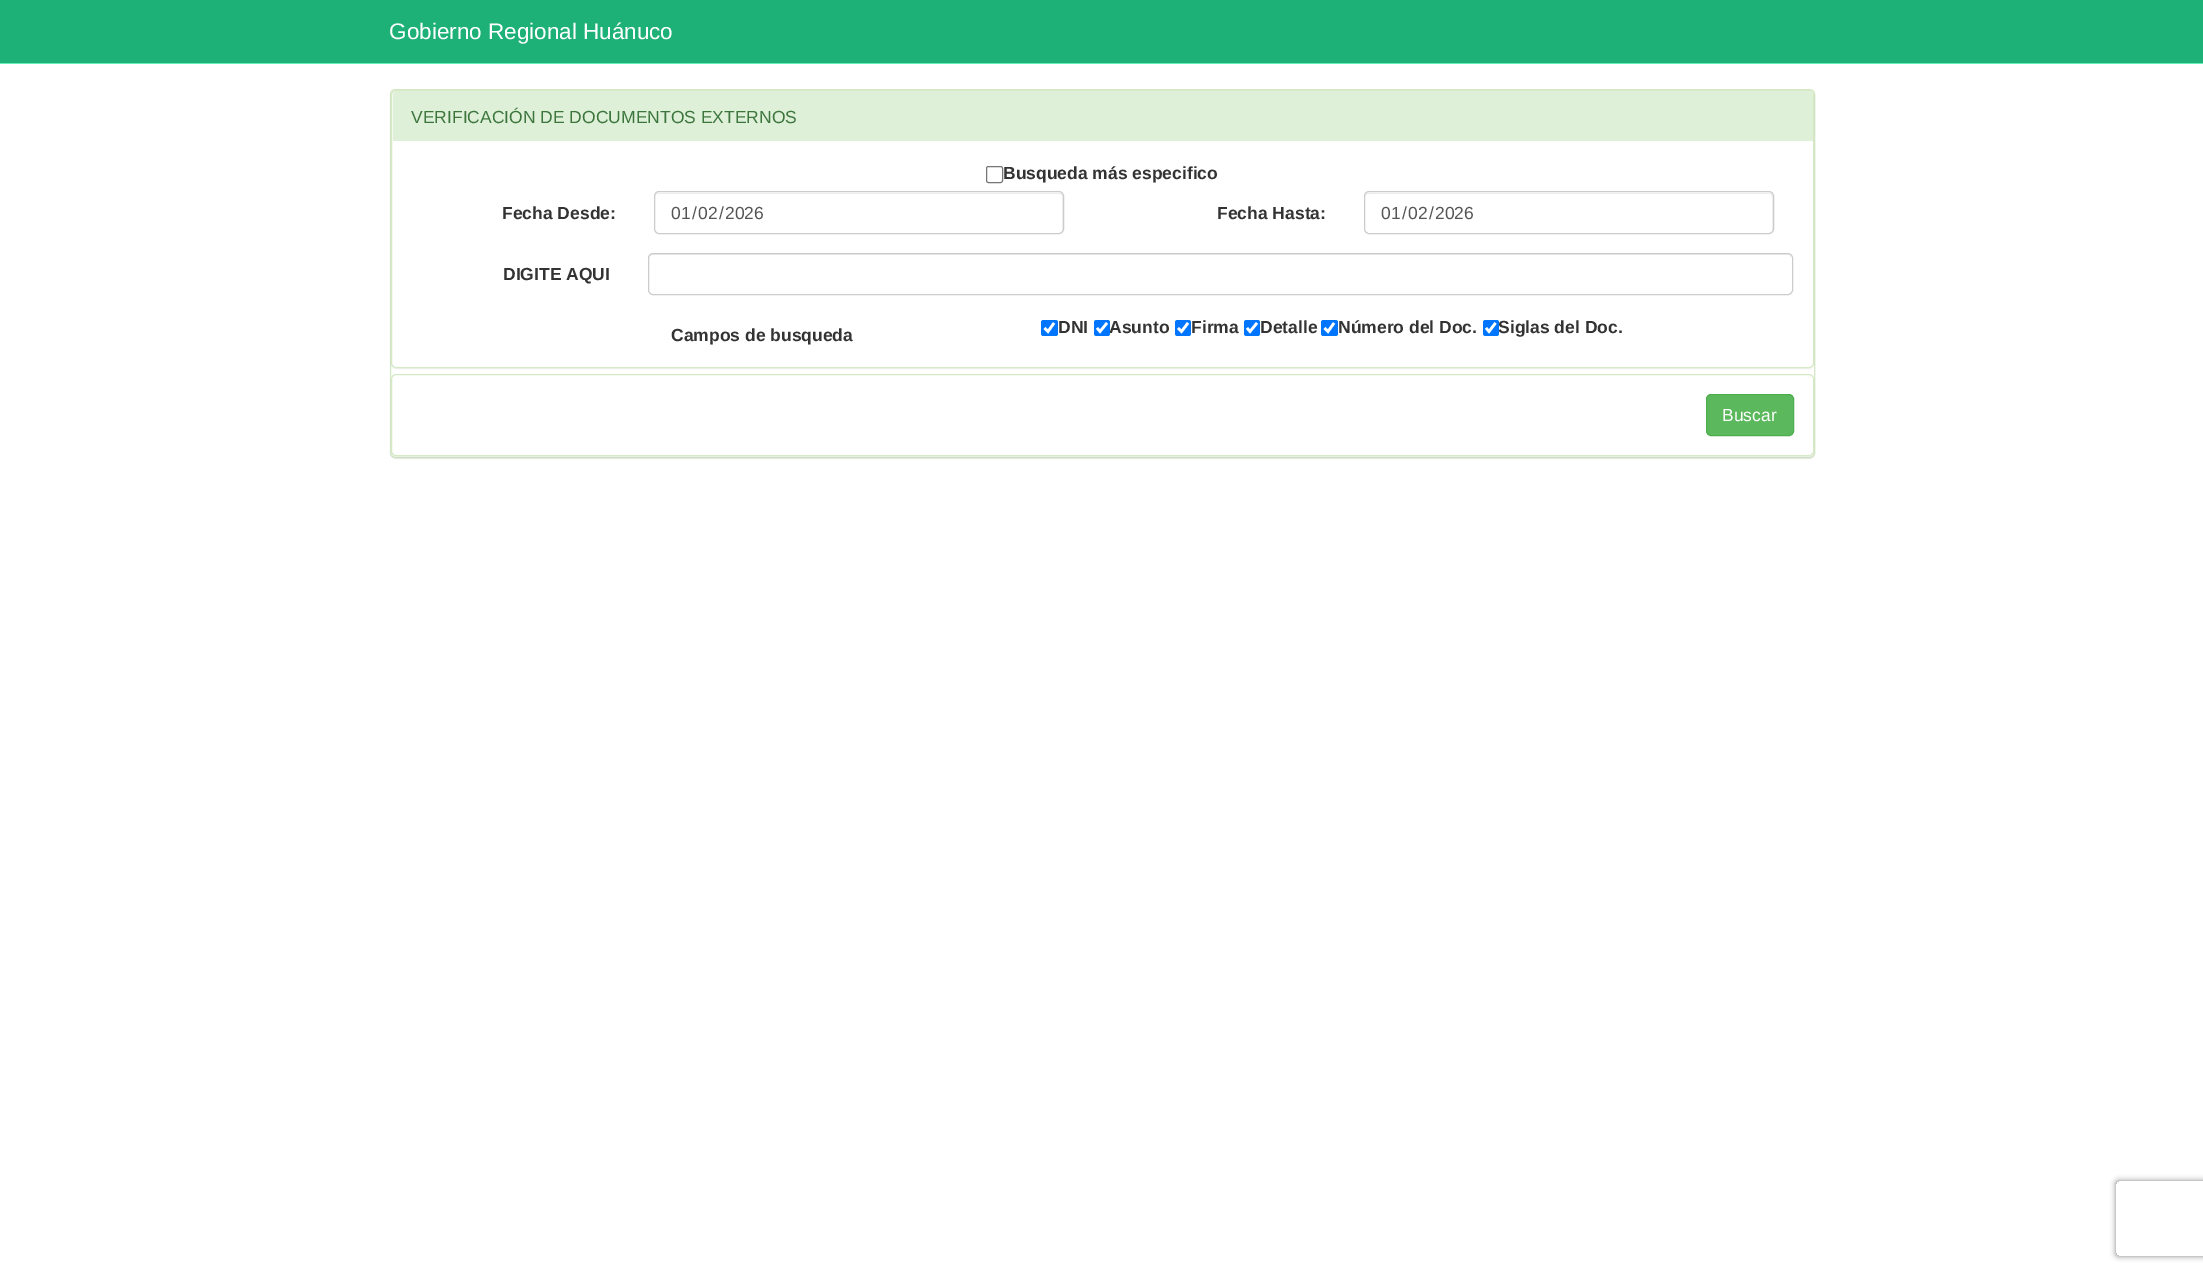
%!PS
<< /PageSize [2203 1273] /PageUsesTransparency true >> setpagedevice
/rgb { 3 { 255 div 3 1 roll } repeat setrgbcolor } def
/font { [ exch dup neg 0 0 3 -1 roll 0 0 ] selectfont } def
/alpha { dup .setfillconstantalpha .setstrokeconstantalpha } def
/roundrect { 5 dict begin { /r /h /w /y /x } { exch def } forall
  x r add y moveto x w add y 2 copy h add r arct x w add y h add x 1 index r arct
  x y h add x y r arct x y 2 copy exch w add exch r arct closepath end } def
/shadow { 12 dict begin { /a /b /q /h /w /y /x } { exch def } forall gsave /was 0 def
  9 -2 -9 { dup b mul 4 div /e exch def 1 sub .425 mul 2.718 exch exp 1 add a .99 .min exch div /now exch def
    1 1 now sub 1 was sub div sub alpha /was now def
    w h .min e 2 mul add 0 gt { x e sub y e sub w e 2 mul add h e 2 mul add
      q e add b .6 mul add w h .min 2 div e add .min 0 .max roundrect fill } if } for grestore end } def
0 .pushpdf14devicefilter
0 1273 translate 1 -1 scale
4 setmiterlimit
255 255 255 rgb
0 0 2203 1273 rectfill
29 177 120 rgb
0 0 2203 63 rectfill
101 238 186 rgb
0 63 2203 1 rectfill
gsave
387 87 moveto 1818 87 lineto 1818 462 lineto 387 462 lineto closepath 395 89 moveto 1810 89 lineto 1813 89 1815 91 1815 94 curveto 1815 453 lineto 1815 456 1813 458 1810 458 curveto 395 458 lineto 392 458 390 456 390 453 curveto 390 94 lineto 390 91 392 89 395 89 curveto closepath eoclip newpath
0 0 0 rgb
390 90 1425 369 5 0.5 0.05 shadow
grestore
0.78 alpha
255 255 255 rgb
390.5 89.5 1424 368 4.5 roundrect fill
1 alpha
214 233 198 rgb
390.5 89.5 1424 368 4.5 roundrect stroke
gsave
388 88 moveto 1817 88 lineto 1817 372 lineto 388 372 lineto closepath 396 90 moveto 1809 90 lineto 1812 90 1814 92 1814 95 curveto 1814 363 lineto 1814 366 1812 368 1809 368 curveto 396 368 lineto 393 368 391 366 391 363 curveto 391 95 lineto 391 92 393 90 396 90 curveto closepath eoclip newpath
0 0 0 rgb
391 91 1423 278 5 0.5 0.05 shadow
grestore
0.78 alpha
255 255 255 rgb
391.5 90.5 1422 277 4.5 roundrect fill
1 alpha
214 233 198 rgb
391.5 90.5 1422 277 4.5 roundrect stroke
223 240 216 rgb
397 91 moveto 1809 91 lineto 1811 91 1813 93 1813 95 curveto 1813 141 lineto 393 141 lineto 393 95 lineto 393 93 395 91 397 91 curveto closepath fill
118 118 118 rgb
986.5 166.5 16 16 2 roundrect stroke
236 236 236 rgb
659 194 moveto 1059 194 lineto 1061 194 1062 195 1062 198 curveto 1062 232 lineto 1062 231 1063 230 1063 229 curveto 1063 197 lineto 1063 195 1061 193 1059 193 curveto 659 193 lineto 657 193 655 195 655 197 curveto 655 198 lineto 655 195 657 194 659 194 curveto closepath fill
204 204 204 rgb
654.5 191.5 409 42 4.5 roundrect stroke
236 236 236 rgb
1369 194 moveto 1769 194 lineto 1771 194 1772 195 1772 198 curveto 1772 232 lineto 1772 231 1773 230 1773 229 curveto 1773 197 lineto 1773 195 1771 193 1769 193 curveto 1369 193 lineto 1367 193 1365 195 1365 197 curveto 1365 198 lineto 1365 195 1367 194 1369 194 curveto closepath fill
204 204 204 rgb
1364.5 191.5 409 42 4.5 roundrect stroke
236 236 236 rgb
652 255 moveto 1788 255 lineto 1790 255 1791 257 1791 259 curveto 1791 256 1790 254 1787 254 curveto 653 254 lineto 650 254 649 256 649 259 curveto 649 257 650 255 652 255 curveto closepath fill
204 204 204 rgb
648.5 253.5 1144 41 4.5 roundrect stroke
0 117 255 rgb
1041 320 17 16 2.5 roundrect fill
255 255 255 rgb
2.6 setlinewidth
1044.5 328 moveto 1048 331.5 lineto 1054 323 lineto stroke
0 117 255 rgb
1175 320 16 16 2.5 roundrect fill
255 255 255 rgb
1178 328 moveto 1181.5 331.5 lineto 1188 323 lineto stroke
0 117 255 rgb
1244 320 16 16 2.5 roundrect fill
255 255 255 rgb
1247 328 moveto 1250 331.5 lineto 1257 323 lineto stroke
0 117 255 rgb
1321 320 17 16 2.5 roundrect fill
255 255 255 rgb
1324.5 328 moveto 1328 331.5 lineto 1334 323 lineto stroke
gsave
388 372 moveto 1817 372 lineto 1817 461 lineto 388 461 lineto closepath 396 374 moveto 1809 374 lineto 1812 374 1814 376 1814 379 curveto 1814 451 lineto 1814 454 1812 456 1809 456 curveto 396 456 lineto 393 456 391 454 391 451 curveto 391 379 lineto 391 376 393 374 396 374 curveto closepath eoclip newpath
0 0 0 rgb
391 375 1423 83 5 0.5 0.05 shadow
grestore
0.78 alpha
391.5 374.5 1422 81 4.5 roundrect fill
1 alpha
214 233 198 rgb
1 setlinewidth
391.5 374.5 1422 81 4.5 roundrect stroke
92 184 92 rgb
1706.5 394.5 87 41 4.5 roundrect gsave fill grestore
76 174 76 rgb
stroke
gsave
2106 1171 moveto 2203 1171 lineto 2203 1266 lineto 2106 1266 lineto closepath 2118.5 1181 moveto 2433.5 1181 lineto 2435 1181 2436 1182 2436 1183.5 curveto 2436 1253.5 lineto 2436 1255 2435 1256 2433.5 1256 curveto 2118.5 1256 lineto 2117 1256 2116 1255 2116 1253.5 curveto 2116 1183.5 lineto 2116 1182 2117 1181 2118.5 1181 curveto closepath eoclip newpath
128 128 128 rgb
2116 1181 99 75 2.5 3 1 shadow
grestore
/LiberationSans-Regular 22.5 font
255 255 255 rgb
389 39 moveto (Gobierno Regional Huánuco) show
/LiberationSans-Regular 17.5 font
60 118 61 rgb
411 123 moveto (VERIFICACIÓN DE DOCUMENTOS EXTERNOS) show
/LiberationSans-Bold 17.5 font
51 51 51 rgb
1003 179 moveto (Busqueda más especifico) show
502 219 moveto (Fecha Desde:) show
/LiberationSans-Regular 17.5 font
85 85 85 rgb
[
  [(01) 671 219]
  [(/) 692 219]
  [(02) 698 219]
  [(/) 719 219]
  [(2026) 725 219]
] { aload pop moveto show } forall
/LiberationSans-Bold 17.5 font
51 51 51 rgb
1217 219 moveto (Fecha Hasta:) show
/LiberationSans-Regular 17.5 font
85 85 85 rgb
[
  [(01) 1381 219]
  [(/) 1402 219]
  [(02) 1408 219]
  [(/) 1429 219]
  [(2026) 1435 219]
] { aload pop moveto show } forall
/LiberationSans-Bold 17.5 font
51 51 51 rgb
[
  [(DIGITE AQUI) 503 280]
  [(Campos de busqueda) 671 341]
  [(DNI) 1058 333]
  [(Asunto) 1109 333]
] { aload pop moveto show } forall
0 117 255 rgb
1094 320 16 16 2.5 roundrect fill
255 255 255 rgb
2.6 setlinewidth
1097 328 moveto 1100 331.5 lineto 1107 323 lineto stroke
51 51 51 rgb
[
  [(Firma) 1191 333]
  [(Detalle) 1260 333]
  [(Número del Doc.) 1338 333]
  [(Siglas del Doc.) 1498 333]
] { aload pop moveto show } forall
0 117 255 rgb
1483 320 16 16 2.5 roundrect fill
255 255 255 rgb
1486 328 moveto 1489 331.5 lineto 1495.5 323 lineto stroke
/LiberationSans-Regular 17.5 font
1722 421 moveto (Buscar) show
.poppdf14devicefilter showpage
